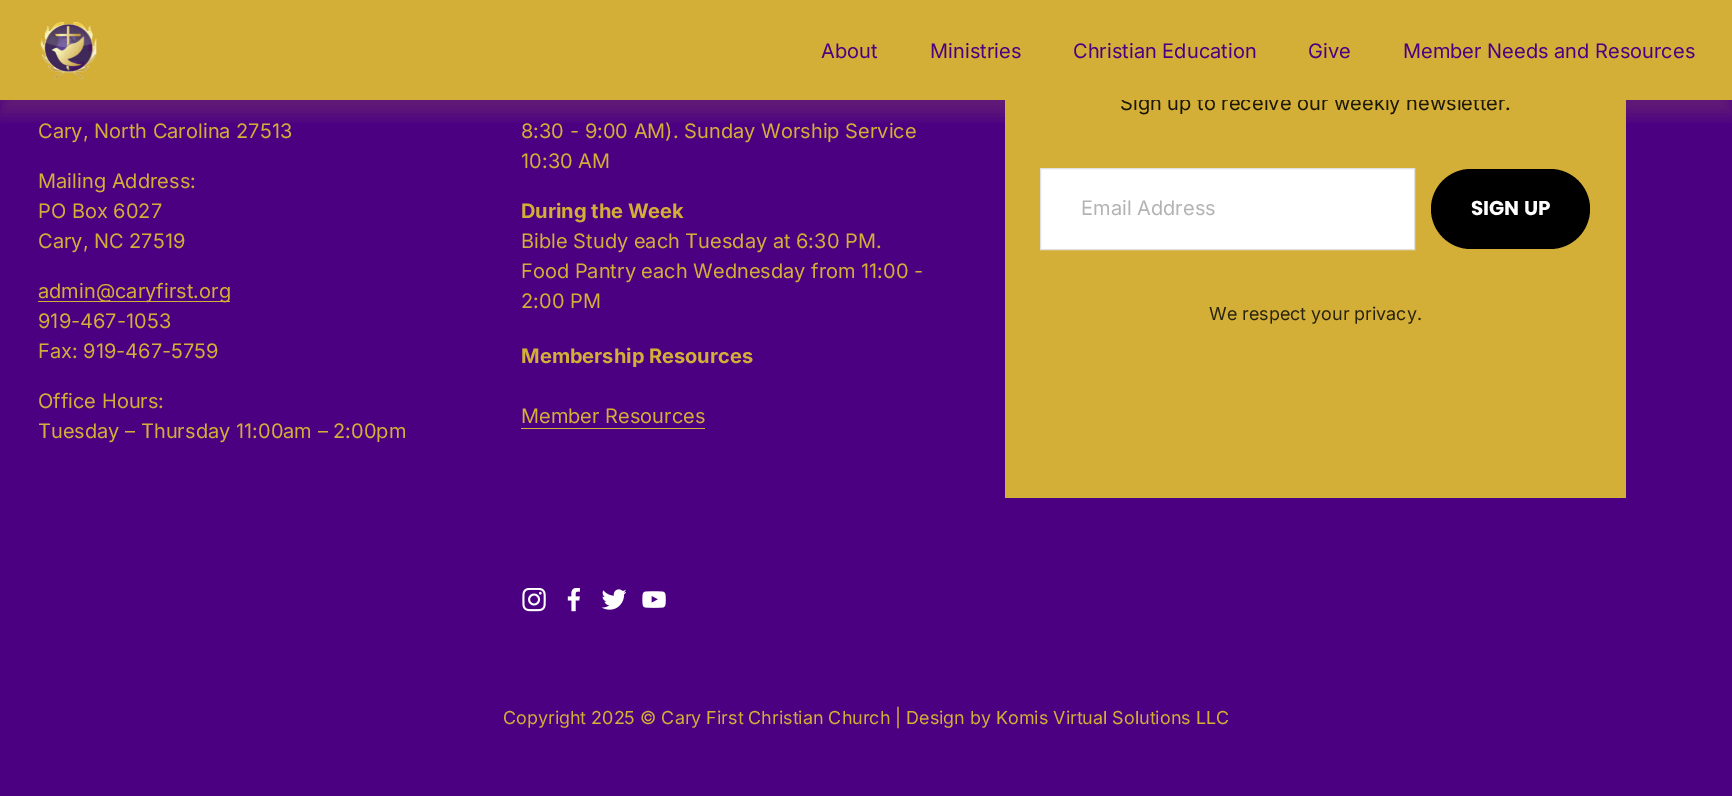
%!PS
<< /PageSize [1732 796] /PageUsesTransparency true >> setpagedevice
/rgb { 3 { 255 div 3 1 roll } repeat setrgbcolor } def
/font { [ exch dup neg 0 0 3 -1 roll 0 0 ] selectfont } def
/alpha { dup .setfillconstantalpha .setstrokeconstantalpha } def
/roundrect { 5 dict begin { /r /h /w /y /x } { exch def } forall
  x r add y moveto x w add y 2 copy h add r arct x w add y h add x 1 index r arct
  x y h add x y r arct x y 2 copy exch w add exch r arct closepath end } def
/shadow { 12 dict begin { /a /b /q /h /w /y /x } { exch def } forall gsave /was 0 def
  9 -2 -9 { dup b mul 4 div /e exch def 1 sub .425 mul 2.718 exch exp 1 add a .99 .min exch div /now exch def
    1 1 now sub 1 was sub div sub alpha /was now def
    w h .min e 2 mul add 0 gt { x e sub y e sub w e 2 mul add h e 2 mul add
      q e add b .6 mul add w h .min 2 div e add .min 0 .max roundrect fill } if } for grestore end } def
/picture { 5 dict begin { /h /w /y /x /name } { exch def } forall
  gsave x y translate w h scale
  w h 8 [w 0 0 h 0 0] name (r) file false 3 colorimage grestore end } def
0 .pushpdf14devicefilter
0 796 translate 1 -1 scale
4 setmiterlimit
75 0 130 rgb
0 0 1732 796 rectfill
212 175 55 rgb
38 301 192 1 rectfill
1005 100 621 398 rectfill
255 255 255 rgb
1040.5 168.5 moveto 1414.5 168.5 lineto 1414.5 249.5 lineto 1040.5 249.5 lineto closepath gsave fill grestore
224 224 224 rgb
stroke
0 0 0 rgb
1431 169 159 80 40 roundrect fill
212 175 55 rgb
521 428 184 1 rectfill
(img/2.rgb) 522 588 24 24 picture
(img/3.rgb) 567 588 13 24 picture
(img/4.rgb) 601 589 25 21 picture
(img/5.rgb) 642 591 24 17 picture
/Inter-Regular 20 font
[
  [(Cary, North Carolina 27513) 38 138]
  [(Mailing Address:) 38 188]
  [(PO Box 6027) 38 218]
  [(Cary, NC 27519) 38 248]
  [(admin@caryfirst.org) 38 298]
  [(919-467-1053) 38 328]
  [(Fax: 919-467-5759) 38 358]
  [(Office Hours:) 38 408]
  [(Tuesday – Thursday 11:00am – 2:00pm) 38 438]
  [(8:30 - 9:00 AM\). Sunday Worship Service) 521 138]
  [(10:30 AM) 521 168]
] { aload pop moveto show } forall
/Inter-Bold 20 font
521 218 moveto (During the Week) show
/Inter-Regular 20 font
[
  [(Bible Study each Tuesday at 6:30 PM.) 521 248]
  [(Food Pantry each Wednesday from 11:00 -) 521 278]
  [(2:00 PM) 521 308]
] { aload pop moveto show } forall
0 0 0 rgb
1120 110 moveto (Sign up to receive our weekly newsletter.) show
212 175 55 rgb
0 0 1732 100 rectfill
gsave
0 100 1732 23 rectclip
0 15 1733 100 0 7.5 0.15 shadow
grestore
75 0 130 rgb
[
  [(Member Needs and Resources) 1403 58]
  [(Christian Education) 1073 58]
  [(Ministries) 930 58]
  [(About) 821 58]
  [(Give) 1308 58]
] { aload pop moveto show } forall
(img/1.rgb) 40 22 57 58 picture
179 179 179 rgb
1081 215 moveto (Email Address) show
/Poppins-Bold 20 font
255 255 255 rgb
1471 215 moveto (SIGN UP) show
/Inter-Regular 17.9 font
42 35 11 rgb
1209 320 moveto (We respect your privacy.) show
/Inter-Bold 20 font
212 175 55 rgb
521 363 moveto (Membership Resources) show
/Inter-Regular 20 font
521 423 moveto (Member Resources) show
/Inter-Regular 17.9 font
503 724 moveto (Copyright 2025 © Cary First Christian Church | Design by Komis Virtual Solutions LLC) show
.poppdf14devicefilter showpage
